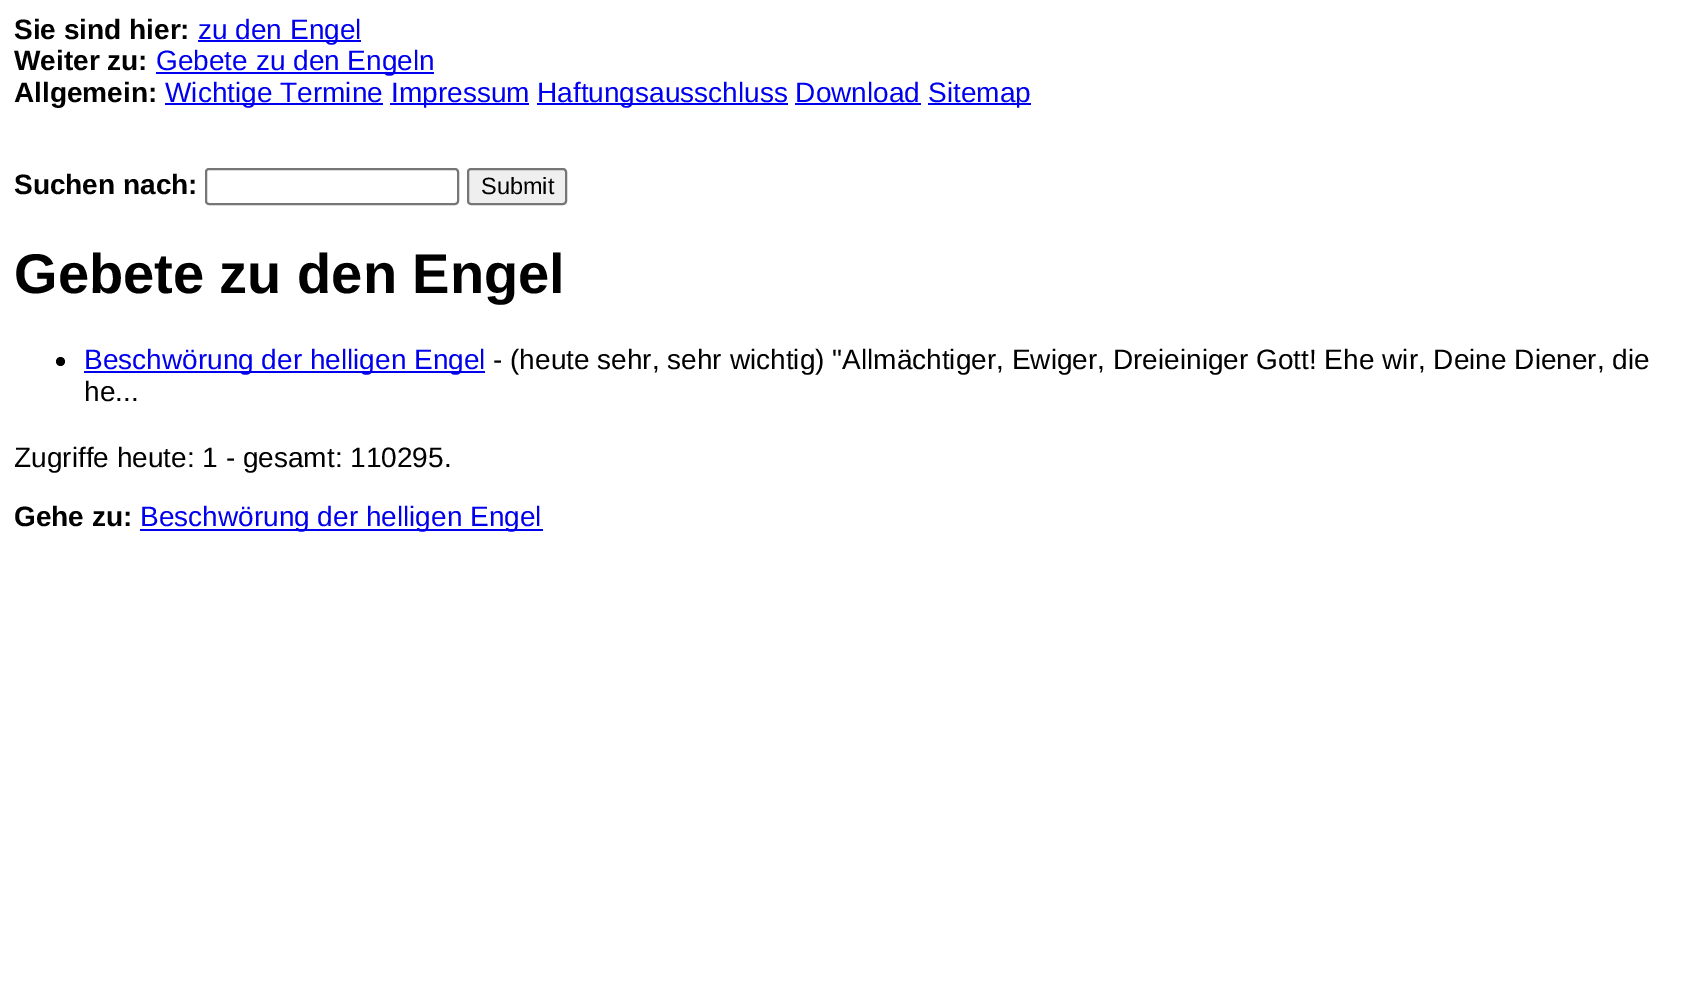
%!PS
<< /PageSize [1692 981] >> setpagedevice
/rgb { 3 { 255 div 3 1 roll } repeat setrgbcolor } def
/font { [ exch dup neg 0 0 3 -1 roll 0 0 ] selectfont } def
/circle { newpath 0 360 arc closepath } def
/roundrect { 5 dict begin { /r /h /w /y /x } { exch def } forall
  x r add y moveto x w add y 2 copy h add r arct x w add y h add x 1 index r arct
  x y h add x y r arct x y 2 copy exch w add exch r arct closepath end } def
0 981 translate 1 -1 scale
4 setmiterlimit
255 255 255 rgb
0 0 1692 981 rectfill
[
  [198 40 163 2 0 0 238]
  [156 72 278 2 0 0 238]
  [165 103 218 2 0 0 238]
  [390 103 139 2 0 0 238]
  [537 103 251 2 0 0 238]
  [928 103 103 2 0 0 238]
  [795 103 126 2 0 0 238]
] { aload pop rgb rectfill } forall
118 118 118 rgb
2 setlinewidth
206 169 252 35 3 roundrect stroke
239 239 239 rgb
468 169 98 35 3 roundrect gsave fill grestore
118 118 118 rgb
stroke
0 0 0 rgb
60.5 361.5 4.5 circle fill
0 0 238 rgb
84 371 401 2 rectfill
140 529 403 2 rectfill
/LiberationSans-Bold 28 font
0 0 0 rgb
14 39 moveto (Sie sind hier:) show
/LiberationSans-Regular 28 font
0 0 238 rgb
198 39 moveto (zu den Engel) show
/LiberationSans-Bold 28 font
0 0 0 rgb
14 70 moveto (Weiter zu:) show
/LiberationSans-Regular 28 font
0 0 238 rgb
156 70 moveto (Gebete zu den Engeln) show
/LiberationSans-Bold 28 font
0 0 0 rgb
14 102 moveto (Allgemein:) show
/LiberationSans-Regular 28 font
0 0 238 rgb
[
  [(Wichtige Termine) 165 102]
  [(Impressum) 391 102]
  [(Haftungsausschluss Download) 537 102]
  [(Sitemap) 928 102]
] { aload pop moveto show } forall
/LiberationSans-Bold 28 font
0 0 0 rgb
14 194 moveto (Suchen nach:) show
/LiberationSans-Regular 23.5 font
481 194 moveto (Submit) show
/LiberationSans-Bold 56 font
14 293 moveto (Gebete zu den Engel) show
/LiberationSans-Regular 28 font
0 0 238 rgb
84 369 moveto (Beschwörung der helligen Engel) show
0 0 0 rgb
[
  [(- \(heute sehr, sehr wichtig\) "Allmächtiger, Ewiger, Dreieiniger Gott! Ehe wir, Deine Diener, die) 493 369]
  [(he...) 84 401]
  [(Zugriffe heute: 1 - gesamt: 110295.) 14 467]
] { aload pop moveto show } forall
/LiberationSans-Bold 28 font
14 526 moveto (Gehe zu:) show
/LiberationSans-Regular 28 font
0 0 238 rgb
140 526 moveto (Beschwörung der helligen Engel) show
showpage
